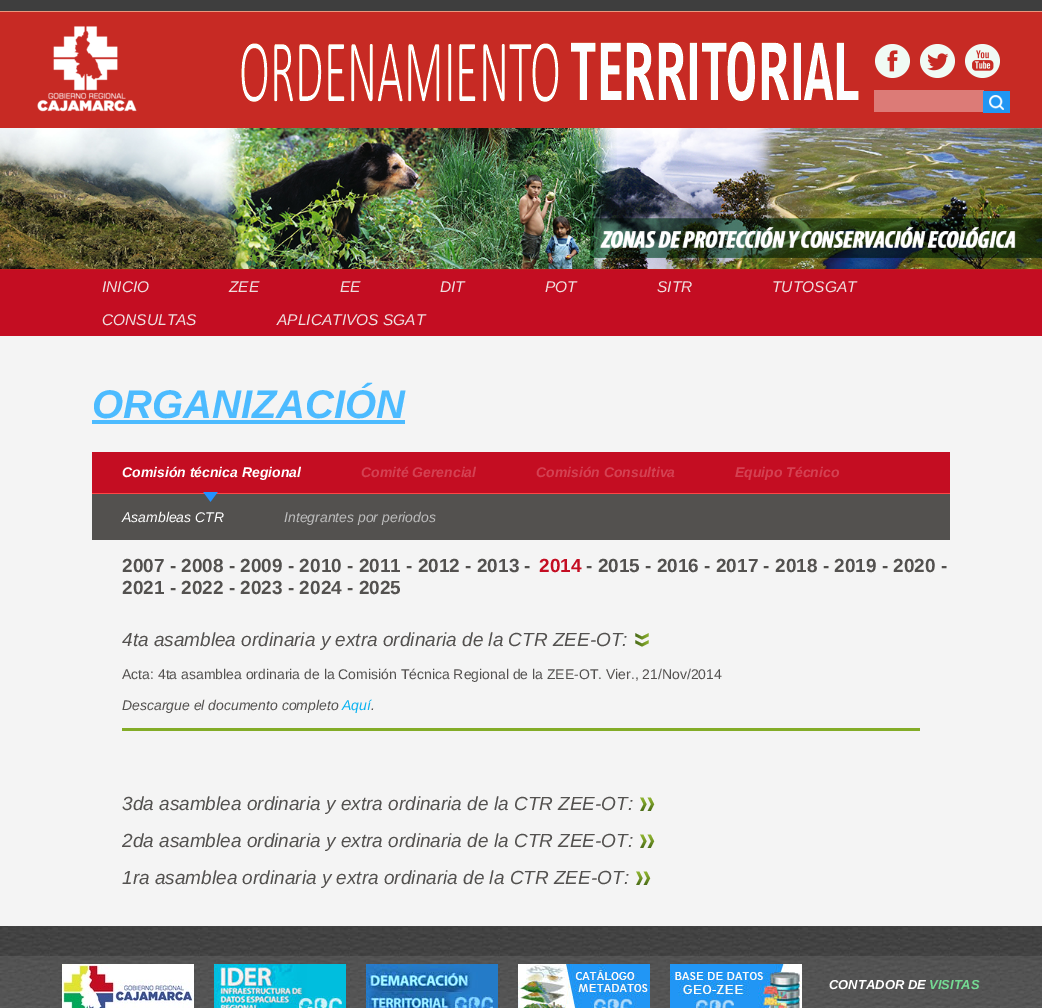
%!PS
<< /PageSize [1042 1008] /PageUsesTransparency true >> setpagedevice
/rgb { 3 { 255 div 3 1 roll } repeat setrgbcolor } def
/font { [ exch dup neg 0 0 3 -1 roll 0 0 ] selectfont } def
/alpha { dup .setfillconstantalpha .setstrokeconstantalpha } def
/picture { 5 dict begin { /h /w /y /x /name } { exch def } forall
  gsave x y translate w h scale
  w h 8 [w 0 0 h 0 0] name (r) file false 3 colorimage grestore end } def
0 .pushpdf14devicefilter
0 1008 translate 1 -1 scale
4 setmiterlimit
244 244 244 rgb
0 0 1042 1008 rectfill
62 62 62 rgb
0 0 1042 11 rectfill
196 13 34 rgb
0 270 1042 66 rectfill
(img/1.rgb) 0 11 1042 117 picture
(img/2.rgb) 37 26 100 86 picture
(img/3.rgb) 875 44 35 34 picture
(img/4.rgb) 920 44 35 34 picture
(img/5.rgb) 965 44 35 34 picture
220 123 119 rgb
874 90 110 22 rectfill
(img/6.rgb) 983 91 27 22 picture
(img/7.rgb) 0 128 1042 141 picture
[
  [0 269 1042 1 188 30 30]
  [92 420 313 4 76 187 255]
  [92 452 858 41 196 13 34]
  [92 494 858 46 83 81 79]
  [92 493 858 1 255 70 70]
] { aload pop rgb rectfill } forall
(img/8.rgb) 203 492 15 10 picture
(img/9.rgb) 635 633 14 14 picture
131 172 39 rgb
122 728 798 3 rectfill
(img/10.rgb) 640 797 15 14 picture
(img/10.rgb) 640 834 15 14 picture
(img/10.rgb) 636 871 15 14 picture
(img/11.rgb) 0 926 1042 82 picture
0.08 alpha
255 255 255 rgb
0 956 1042 52 rectfill
1 alpha
(img/12.rgb) 62 964 132 44 picture
(img/13.rgb) 214 964 132 44 picture
(img/14.rgb) 366 964 132 44 picture
(img/15.rgb) 518 964 132 44 picture
(img/16.rgb) 670 964 132 44 picture
/LiberationSans-Italic 15.5 font
239 223 223 rgb
[
  [(INICIO) 102 292]
  [(ZEE) 229 292]
  [(EE) 340 292]
  [(DIT) 440 292]
  [(POT) 545 292]
  [(SITR) 657 292]
  [(TUTOSGAT) 772 292]
  [(CONSULTAS) 102 325]
  [(APLICATIVOS SGAT) 277 325]
] { aload pop moveto show } forall
/LiberationSans-BoldItalic 40 font
76 187 255 rgb
92 418 moveto (ORGANIZACIÓN) show
/LiberationSans-BoldItalic 14 font
255 255 255 rgb
122 477 moveto (Comisión técnica Regional) show
/LiberationSans-Italic 14 font
122 522 moveto (Asambleas CTR) show
188 188 188 rgb
284 522 moveto (Integrantes por periodos) show
/LiberationSans-BoldItalic 14 font
212 65 82 rgb
[
  [(Comité Gerencial) 361 477]
  [(Comisión Consultiva) 536 477]
  [(Equipo Técnico) 735 477]
] { aload pop moveto show } forall
/LiberationSans-Bold 19 font
83 81 79 rgb
122 572 moveto (2007 - 2008 - 2009 - 2010 - 2011 - 2012 - 2013 -) show
196 13 34 rgb
539 572 moveto (2014) show
83 81 79 rgb
586 572 moveto (- 2015 - 2016 - 2017 - 2018 - 2019 - 2020 -) show
122 594 moveto (2021 - 2022 - 2023 - 2024 - 2025) show
/LiberationSans-Italic 19 font
122 646 moveto (4ta asamblea ordinaria y extra ordinaria de la CTR ZEE-OT:) show
/LiberationSans-Regular 14 font
122 679 moveto (Acta: 4ta asamblea ordinaria de la Comisión Técnica Regional de la ZEE-OT. Vier., 21/Nov/2014) show
/LiberationSans-Italic 14 font
122 710 moveto (Descargue el documento completo) show
9 178 240 rgb
342 710 moveto (Aquí) show
83 81 79 rgb
371 710 moveto (.) show
/LiberationSans-Italic 19 font
[
  [(3da asamblea ordinaria y extra ordinaria de la CTR ZEE-OT:) 122 810]
  [(2da asamblea ordinaria y extra ordinaria de la CTR ZEE-OT:) 122 847]
  [(1ra asamblea ordinaria y extra ordinaria de la CTR ZEE-OT:) 122 884]
] { aload pop moveto show } forall
/LiberationSans-BoldItalic 13 font
255 255 255 rgb
829 989 moveto (CONTADOR DE) show
116 218 147 rgb
929 989 moveto (VISITAS) show
.poppdf14devicefilter showpage
